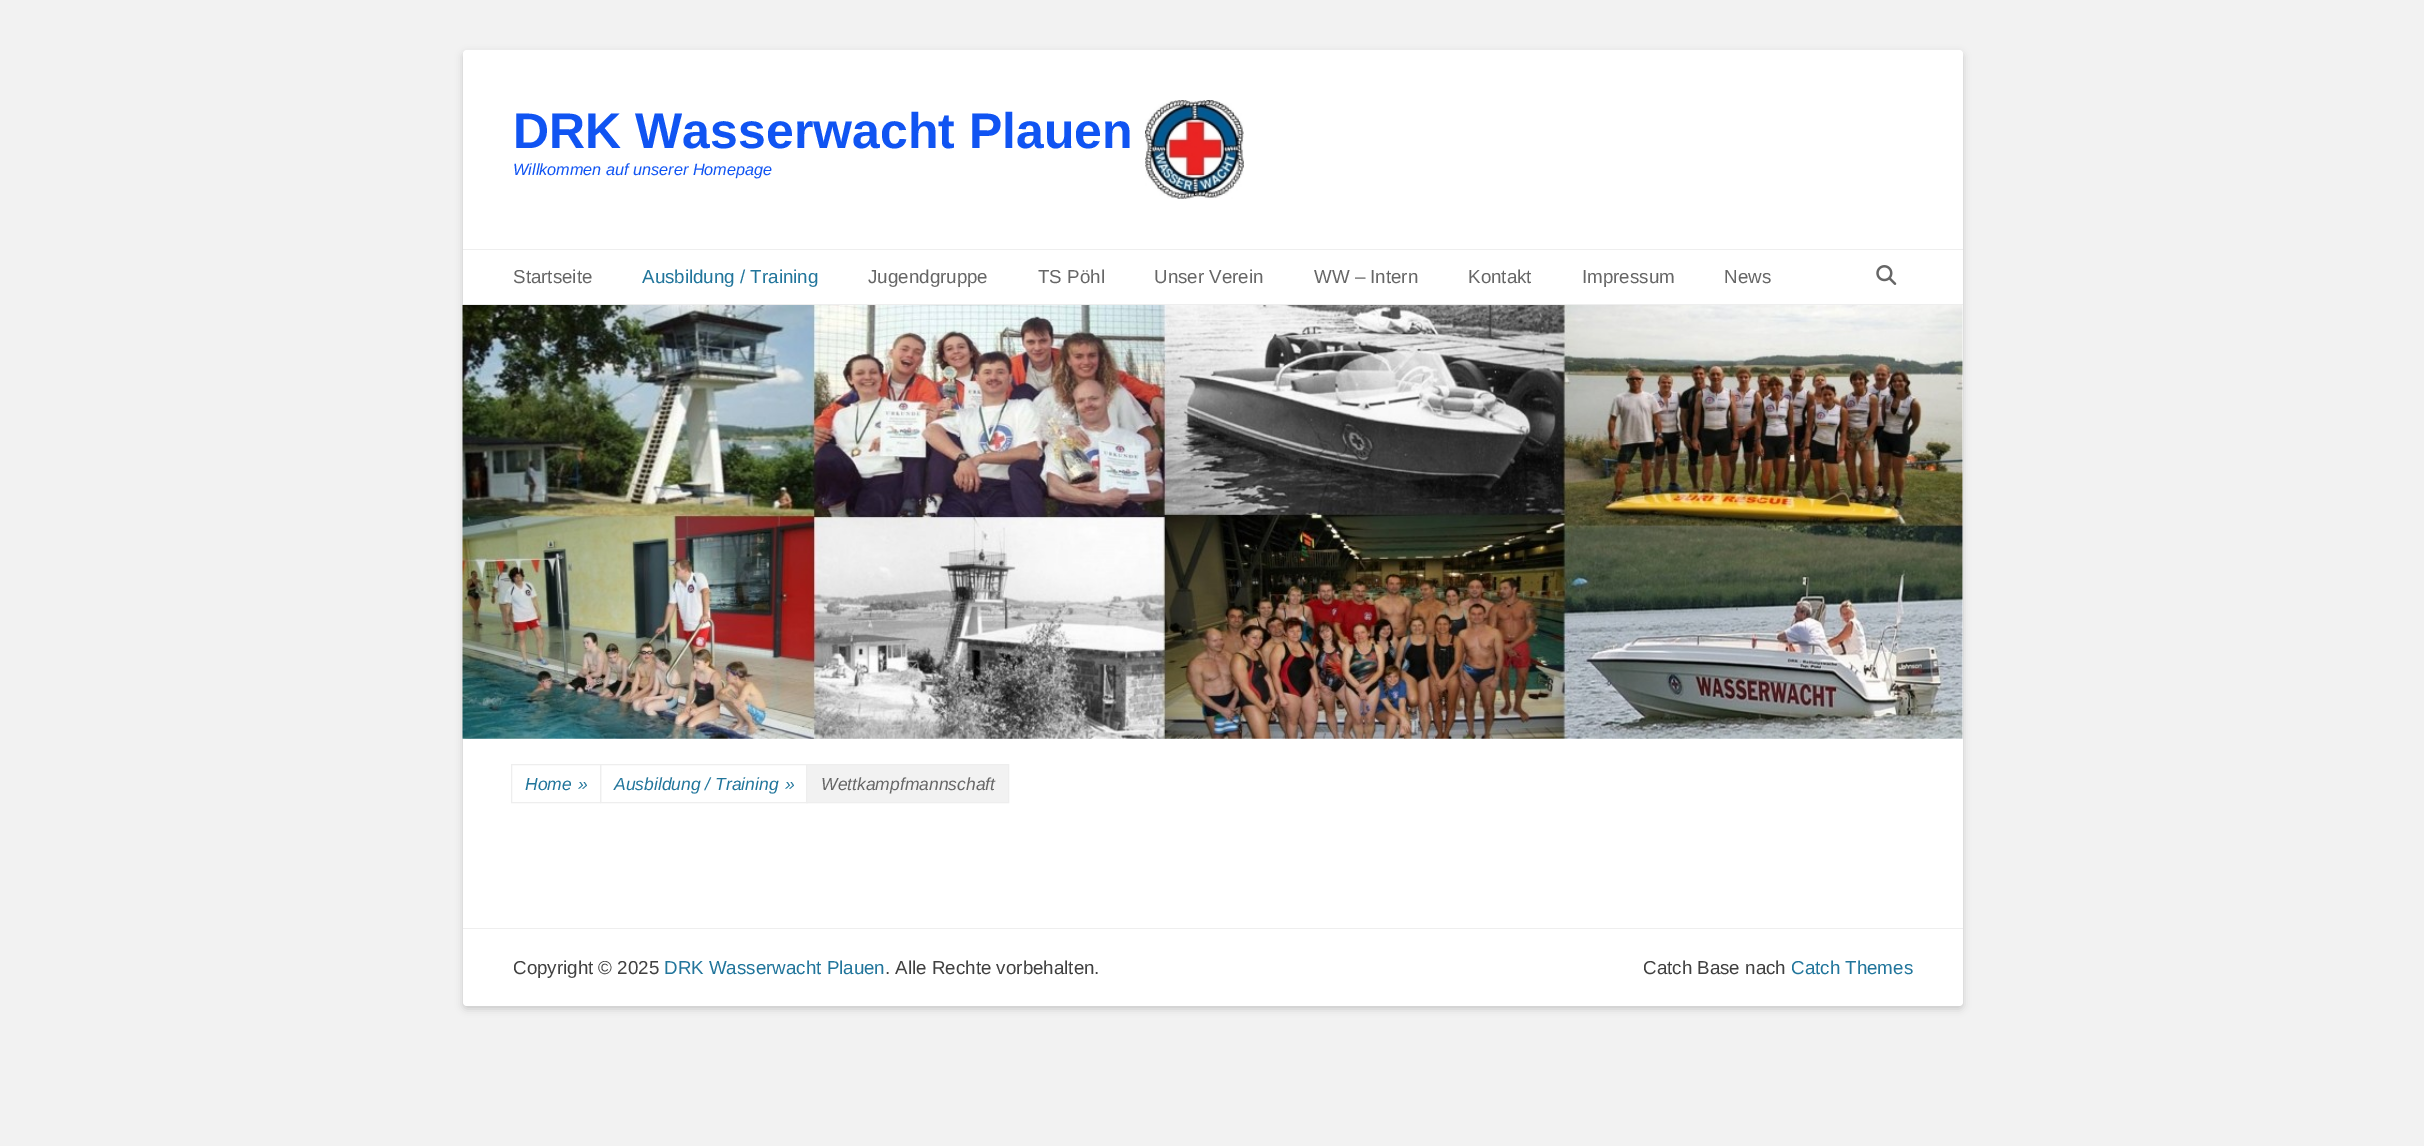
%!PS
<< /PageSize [2424 1146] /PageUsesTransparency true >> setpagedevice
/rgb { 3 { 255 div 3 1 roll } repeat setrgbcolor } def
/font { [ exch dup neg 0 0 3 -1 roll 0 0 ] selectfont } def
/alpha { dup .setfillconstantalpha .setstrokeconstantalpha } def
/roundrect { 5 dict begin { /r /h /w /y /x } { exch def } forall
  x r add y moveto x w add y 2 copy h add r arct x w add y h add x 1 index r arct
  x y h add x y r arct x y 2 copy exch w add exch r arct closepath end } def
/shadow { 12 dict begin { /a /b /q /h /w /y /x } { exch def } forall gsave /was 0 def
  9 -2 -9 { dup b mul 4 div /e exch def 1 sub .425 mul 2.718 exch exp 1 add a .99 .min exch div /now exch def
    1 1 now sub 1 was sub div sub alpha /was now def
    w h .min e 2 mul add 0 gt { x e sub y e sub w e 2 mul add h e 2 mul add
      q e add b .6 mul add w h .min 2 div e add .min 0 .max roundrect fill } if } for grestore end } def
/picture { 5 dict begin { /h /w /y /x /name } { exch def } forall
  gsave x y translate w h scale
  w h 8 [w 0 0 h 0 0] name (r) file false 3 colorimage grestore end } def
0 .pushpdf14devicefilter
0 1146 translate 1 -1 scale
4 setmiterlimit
242 242 242 rgb
0 0 2424 1146 rectfill
100 100 100 rgb
463 53 1500 956 4 4 0.3 shadow
255 255 255 rgb
463 50 1500 956 4 roundrect fill
(img/1.rgb) 1145 100 99 99 picture
238 238 238 rgb
463 249 1500 1 rectfill
463 304 1500 1 rectfill
(img/2.rgb) 1876 265 21 20 picture
(img/3.rgb) 462 305 1501 434 picture
511.5 764.5 89 38 rectstroke
600.5 764.5 207 38 rectstroke
242 242 242 rgb
806.5 764.5 moveto 1008.5 764.5 lineto 1008.5 802.5 lineto 806.5 802.5 lineto closepath gsave fill grestore
238 238 238 rgb
stroke
463 928 1500 1 rectfill
/LiberationSans-Bold 50 font
16 84 242 rgb
513 148 moveto (DRK Wasserwacht Plauen) show
/LiberationSans-Italic 16.25 font
513 175 moveto (Willkommen auf unserer Homepage) show
/LiberationSans-Regular 18.75 font
102 102 102 rgb
513 283 moveto (Startseite) show
33 117 155 rgb
642 283 moveto (Ausbildung / Training) show
102 102 102 rgb
[
  [(Jugendgruppe) 868 283]
  [(TS Pöhl) 1038 283]
  [(Unser Verein) 1154 283]
  [(WW – Intern) 1314 283]
  [(Kontakt) 1468 283]
  [(Impressum) 1582 283]
  [(News) 1724 283]
] { aload pop moveto show } forall
/LiberationSans-Italic 17.5 font
33 117 155 rgb
[
  [(Home) 525 790]
  [(») 578 790]
  [(Ausbildung / Training) 614 790]
  [(») 785 790]
] { aload pop moveto show } forall
102 102 102 rgb
821 790 moveto (Wettkampfmannschaft) show
/LiberationSans-Regular 18.75 font
64 64 64 rgb
513 974 moveto (Copyright © 2025) show
33 117 155 rgb
664 974 moveto (DRK Wasserwacht Plauen) show
64 64 64 rgb
885 974 moveto (. Alle Rechte vorbehalten.) show
1643 974 moveto (Catch Base nach) show
33 117 155 rgb
1791 974 moveto (Catch Themes) show
.poppdf14devicefilter showpage
